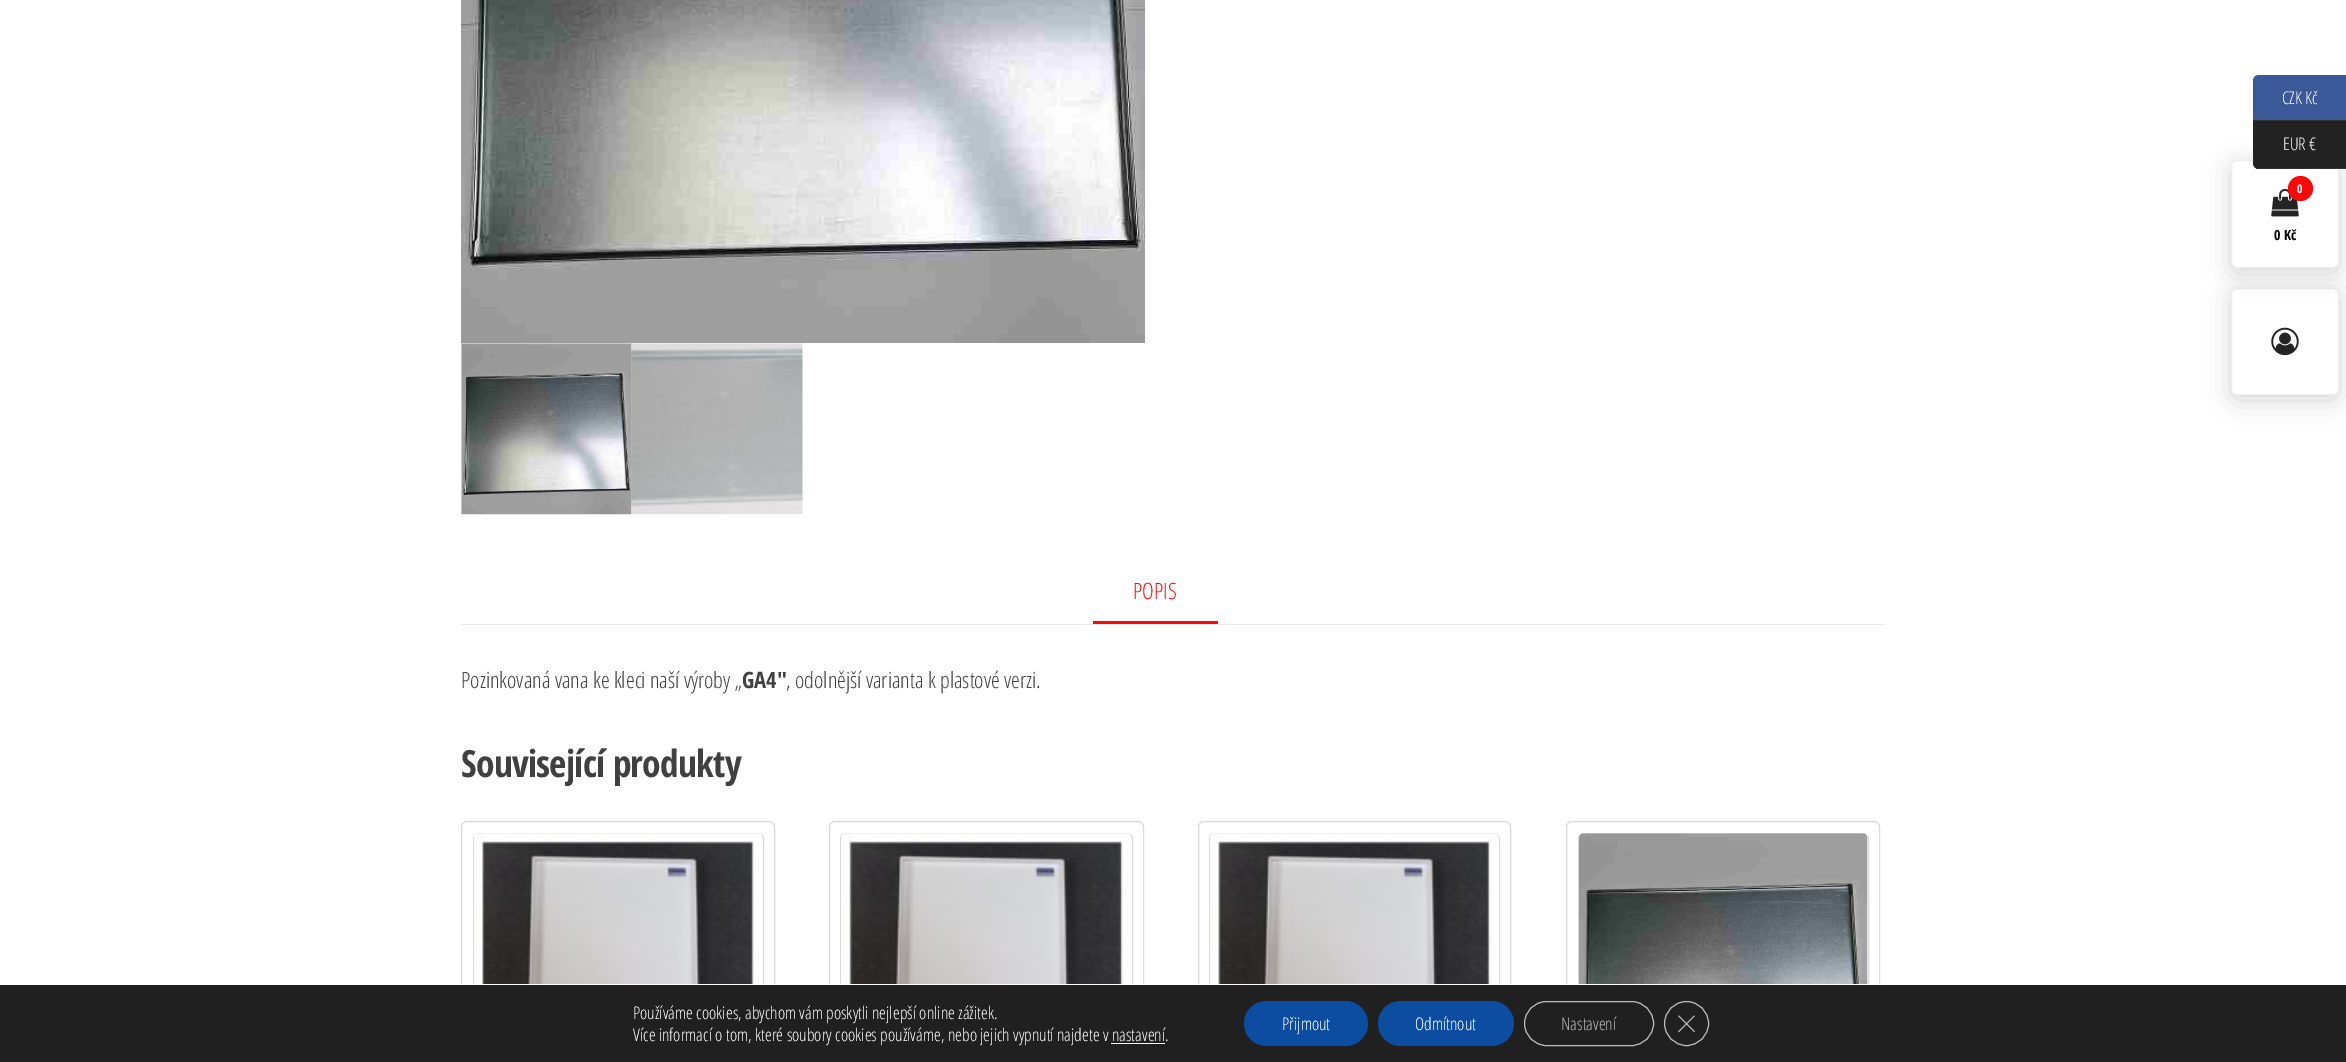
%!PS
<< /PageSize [2346 1062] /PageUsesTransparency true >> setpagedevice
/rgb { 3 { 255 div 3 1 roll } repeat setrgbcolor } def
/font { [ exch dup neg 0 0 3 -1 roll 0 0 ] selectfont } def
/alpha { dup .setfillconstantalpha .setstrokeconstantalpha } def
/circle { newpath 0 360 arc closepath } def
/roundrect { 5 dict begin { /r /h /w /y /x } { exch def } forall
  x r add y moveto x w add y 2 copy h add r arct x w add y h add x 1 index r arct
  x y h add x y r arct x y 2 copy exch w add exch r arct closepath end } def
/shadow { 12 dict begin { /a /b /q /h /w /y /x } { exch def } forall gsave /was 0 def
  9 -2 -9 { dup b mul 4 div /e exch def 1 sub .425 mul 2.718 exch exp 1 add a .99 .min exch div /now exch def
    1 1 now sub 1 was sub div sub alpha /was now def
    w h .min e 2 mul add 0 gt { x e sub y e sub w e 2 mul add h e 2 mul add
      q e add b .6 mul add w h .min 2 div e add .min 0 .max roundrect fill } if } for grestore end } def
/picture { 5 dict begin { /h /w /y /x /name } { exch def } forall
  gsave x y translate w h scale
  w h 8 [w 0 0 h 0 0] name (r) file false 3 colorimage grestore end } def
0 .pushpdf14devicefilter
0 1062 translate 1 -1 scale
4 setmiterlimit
255 255 255 rgb
0 0 2346 1062 rectfill
59 89 152 rgb
2259 75 moveto 2346 75 lineto 2346 121 lineto 2253 121 lineto 2253 81 lineto 2253 77.5 2255.5 75 2259 75 curveto closepath fill
51 51 51 rgb
2253 120 93 1 rectfill
0 0 0 rgb
2231 293 108 107 6 12.5 0.17 shadow
255 255 255 rgb
2231.5 288.5 107 106 5.5 roundrect gsave fill grestore
237 237 237 rgb
stroke
0 0 0 rgb
2231 165 108 108 6 12.5 0.17 shadow
255 255 255 rgb
2231.5 160.5 107 107 5.5 roundrect gsave fill grestore
237 237 237 rgb
stroke
34 34 34 rgb
2253 121 moveto 2346 121 lineto 2346 169 lineto 2259 169 lineto 2255.5 169 2253 166.5 2253 163 curveto closepath fill
51 51 51 rgb
2256 168 90 1 rectfill
(img/1.rgb) 2271 188 28 29 picture
255 7 7 rgb
2300.5 188.5 12.5 circle fill
(img/2.rgb) 2271 327 28 29 picture
(img/3.rgb) 461 0 684 343 picture
(img/4.rgb) 461 343 171 172 picture
(img/5.rgb) 631 343 172 172 picture
234 234 234 rgb
461 624 1425 1 rectfill
255 7 7 rgb
1093 621 125 3 rectfill
217 217 217 rgb
461.5 821.5 313 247 5.5 roundrect stroke
473.5 833.5 290 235 5.5 roundrect stroke
(img/6.rgb) 474 833 288 151 picture
829.5 821.5 314 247 5.5 roundrect stroke
840.5 833.5 292 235 5.5 roundrect stroke
(img/7.rgb) 841 833 290 151 picture
1198.5 821.5 312 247 5.5 roundrect stroke
1209.5 833.5 290 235 5.5 roundrect stroke
(img/8.rgb) 1210 833 289 151 picture
1566.5 821.5 313 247 5.5 roundrect stroke
1578.5 833.5 290 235 5.5 roundrect stroke
(img/9.rgb) 1578 833 290 151 picture
[
  [0 985 2346 77 32 32 32]
  [461 984 1419 1 255 255 255]
  [1111 1043 54 1 255 255 255]
] { aload pop rgb rectfill } forall
12 77 162 rgb
1244 1001 124 45 22.5 roundrect fill
1378 1001 136 45 22.5 roundrect fill
188 188 188 rgb
1524.5 1001.5 129 44 22 roundrect stroke
1686.5 1023.5 22 circle stroke
1694 1015.5 moveto 1695 1016 lineto 1679 1032 lineto 1678 1031.5 lineto closepath fill
1678 1016 moveto 1679 1015.5 lineto 1695 1031.5 lineto 1694 1032 lineto closepath fill
/OpenSansCondensed-Light 17.5 font
255 255 255 rgb
2282 104 moveto (CZK Kč) show
2283 150 moveto (EUR €) show
/OpenSansCondensed-Bold 12 font
2297 193 moveto (0) show
/OpenSansCondensed-Bold 14 font
0 0 0 rgb
2274 240 moveto (0 Kč) show
/OpenSansCondensed-Light 22.5 font
255 7 7 rgb
1133 599 moveto (POPIS) show
64 64 64 rgb
461 688 moveto (Pozinkovaná vana ke kleci naší výroby „) show
/OpenSansCondensed-Bold 22.5 font
742 688 moveto (GA4″) show
/OpenSansCondensed-Light 22.5 font
786 688 moveto (, odolnější varianta k plastové verzi.) show
/OpenSansCondensed-Bold 37.5 font
461 777 moveto -0.75 0 (Související produkty) ashow
/OpenSansCondensed-Light 17.5 font
255 255 255 rgb
[
  [(Používáme cookies, abychom vám poskytli nejlepší online zážitek.) 633 1019]
  [(Více informací o tom, které soubory cookies používáme, nebo jejich vypnutí najdete v nastavení.) 633 1041]
  [(Přijmout) 1282 1030]
  [(Odmítnout) 1415 1030]
] { aload pop moveto show } forall
188 188 188 rgb
1561 1030 moveto (Nastavení) show
.poppdf14devicefilter showpage
